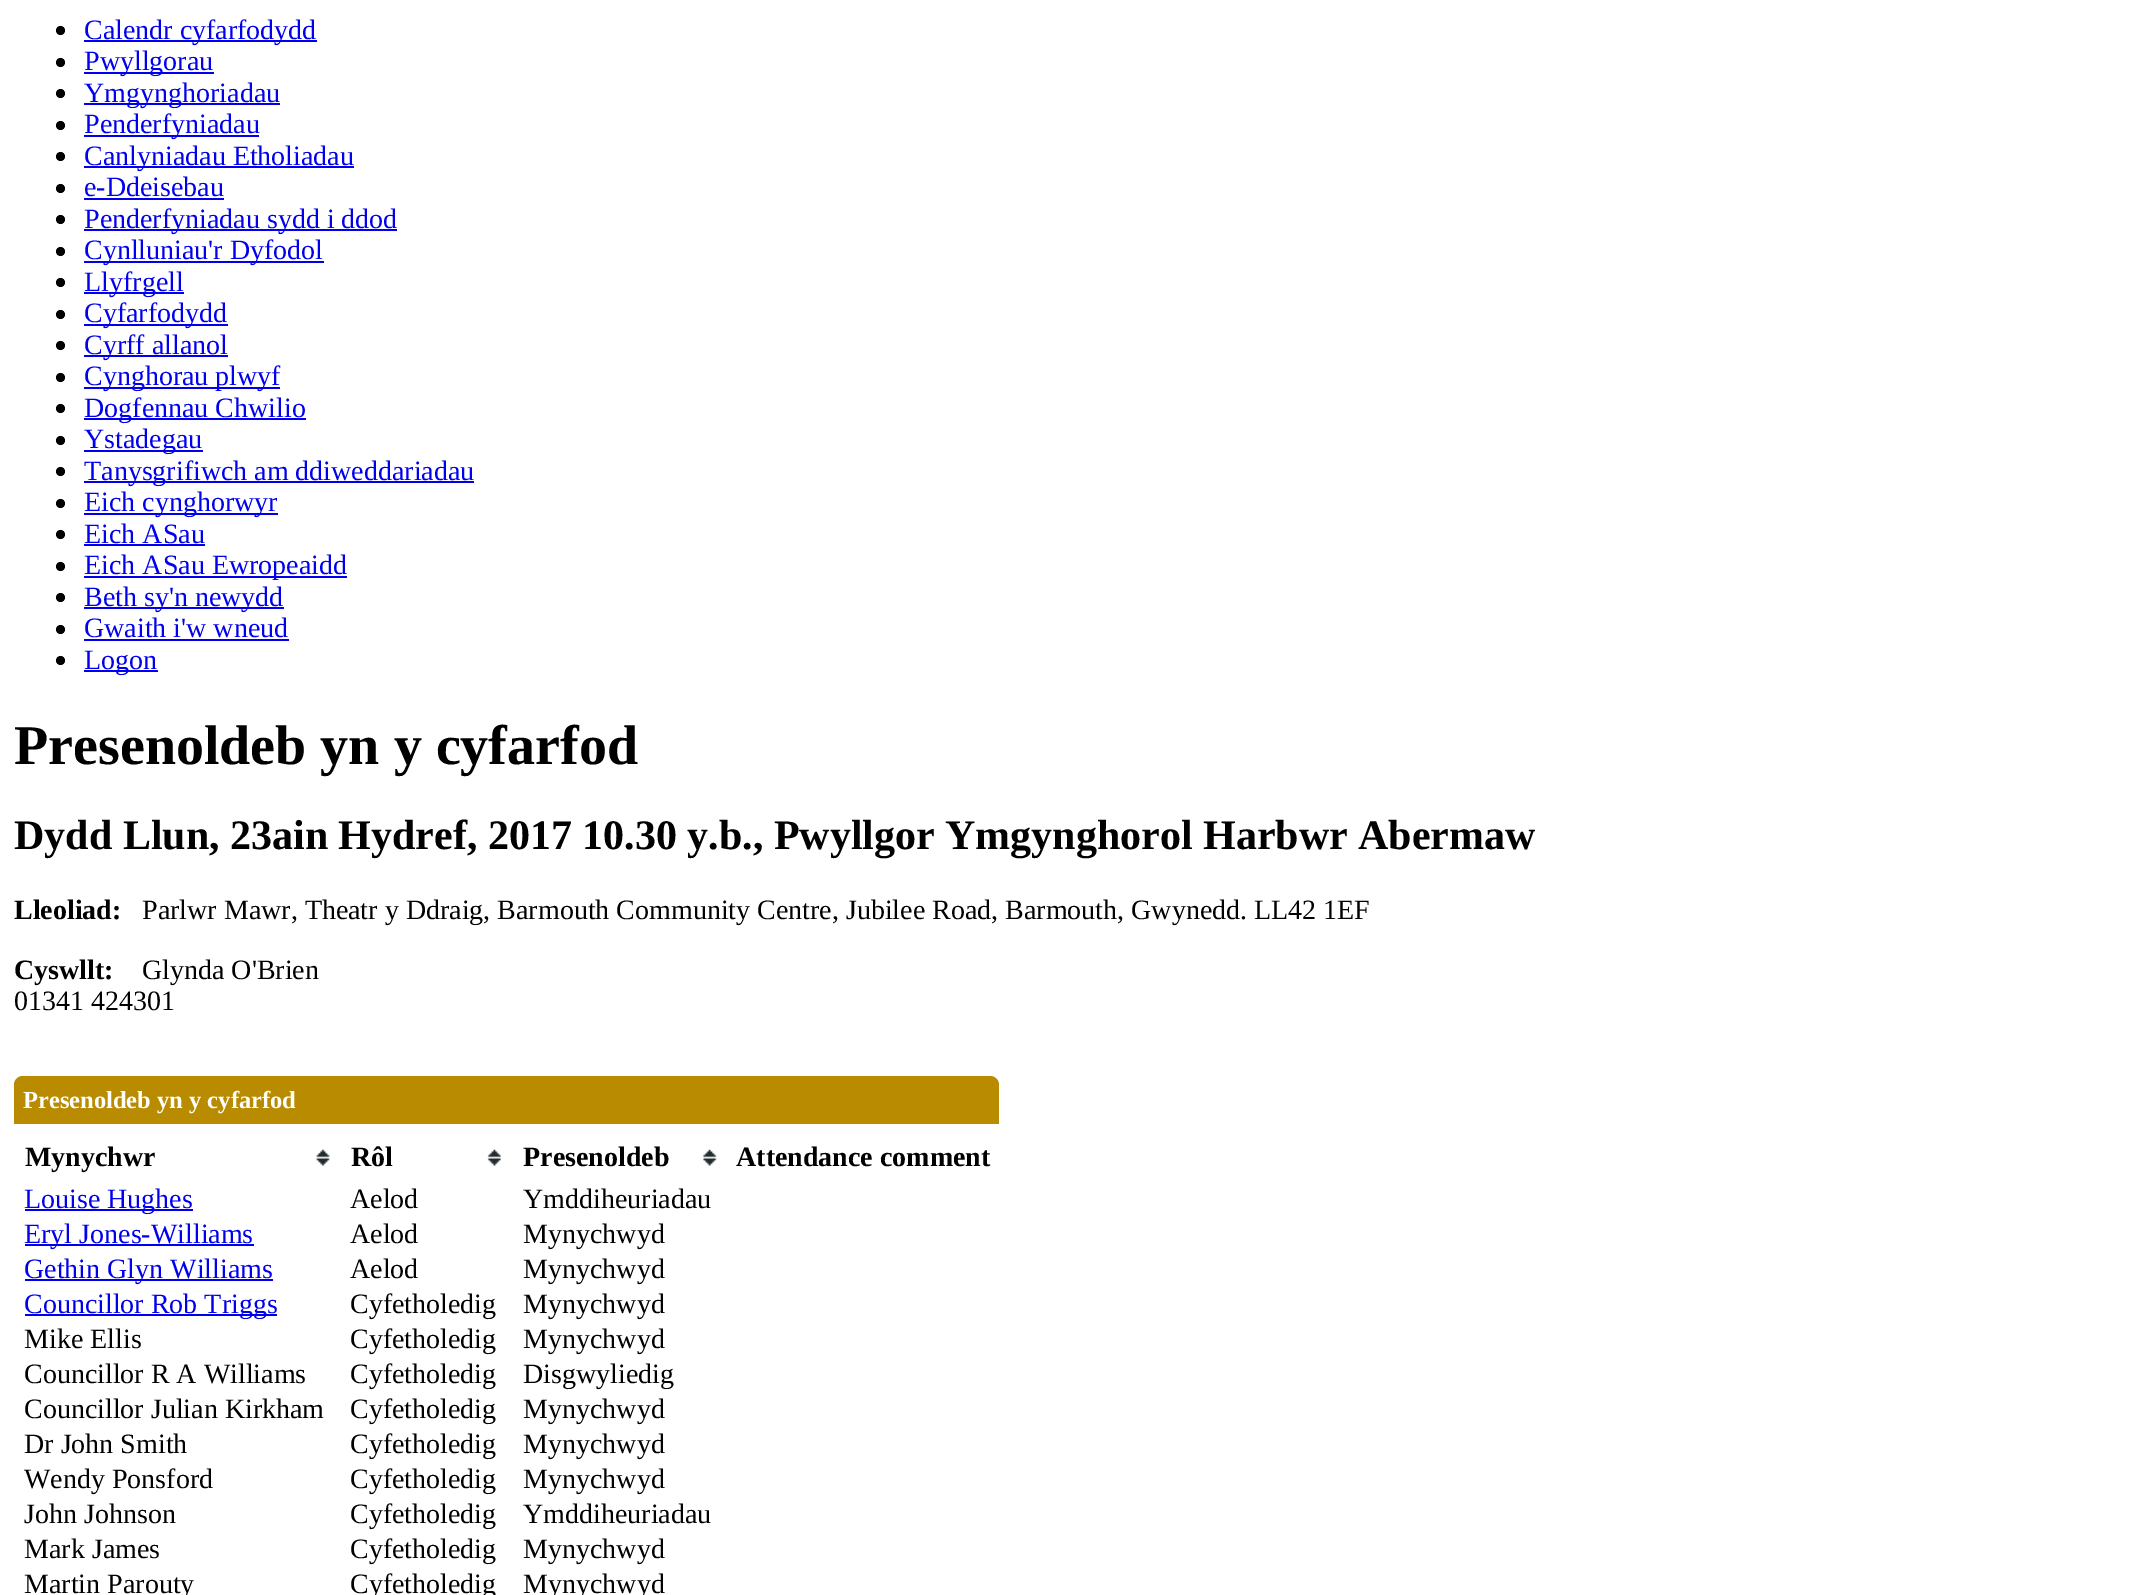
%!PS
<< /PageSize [2148 1595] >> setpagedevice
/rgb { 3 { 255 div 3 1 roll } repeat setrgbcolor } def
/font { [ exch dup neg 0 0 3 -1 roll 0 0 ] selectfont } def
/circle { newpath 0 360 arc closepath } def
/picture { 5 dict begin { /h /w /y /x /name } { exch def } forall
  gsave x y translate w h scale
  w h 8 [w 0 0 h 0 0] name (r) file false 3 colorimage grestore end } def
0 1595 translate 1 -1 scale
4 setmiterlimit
255 255 255 rgb
0 0 2148 1595 rectfill
0 0 0 rgb
60.5 30.5 4.5 circle fill
0 0 238 rgb
84 40 233 2 rectfill
0 0 0 rgb
60.5 62.5 4.5 circle fill
0 0 238 rgb
84 72 130 2 rectfill
0 0 0 rgb
60.5 93.5 4.5 circle fill
0 0 238 rgb
84 103 196 2 rectfill
0 0 0 rgb
60.5 125.5 4.5 circle fill
0 0 238 rgb
84 135 175 2 rectfill
0 0 0 rgb
60.5 156.5 4.5 circle fill
0 0 238 rgb
84 166 270 2 rectfill
0 0 0 rgb
60.5 188.5 4.5 circle fill
0 0 238 rgb
84 198 140 2 rectfill
0 0 0 rgb
60.5 219.5 4.5 circle fill
0 0 238 rgb
84 229 313 2 rectfill
0 0 0 rgb
60.5 251.5 4.5 circle fill
0 0 238 rgb
84 261 240 2 rectfill
0 0 0 rgb
60.5 282.5 4.5 circle fill
0 0 238 rgb
84 292 100 2 rectfill
0 0 0 rgb
60.5 314.5 4.5 circle fill
0 0 238 rgb
84 324 144 2 rectfill
0 0 0 rgb
60.5 345.5 4.5 circle fill
0 0 238 rgb
84 355 144 2 rectfill
0 0 0 rgb
60.5 377.5 4.5 circle fill
0 0 238 rgb
84 387 196 2 rectfill
0 0 0 rgb
60.5 408.5 4.5 circle fill
0 0 238 rgb
84 418 222 2 rectfill
0 0 0 rgb
60.5 440.5 4.5 circle fill
0 0 238 rgb
84 450 119 2 rectfill
0 0 0 rgb
60.5 471.5 4.5 circle fill
0 0 238 rgb
84 481 390 2 rectfill
0 0 0 rgb
60.5 503.5 4.5 circle fill
0 0 238 rgb
84 513 194 2 rectfill
0 0 0 rgb
60.5 534.5 4.5 circle fill
0 0 238 rgb
84 544 121 2 rectfill
0 0 0 rgb
60.5 566.5 4.5 circle fill
0 0 238 rgb
84 576 263 2 rectfill
0 0 0 rgb
60.5 597.5 4.5 circle fill
0 0 238 rgb
84 607 200 2 rectfill
0 0 0 rgb
60.5 629.5 4.5 circle fill
0 0 238 rgb
84 639 205 2 rectfill
0 0 0 rgb
60.5 660.5 4.5 circle fill
0 0 238 rgb
84 670 74 2 rectfill
185 139 0 rgb
23 1076 moveto 990 1076 lineto 995 1076 999 1080 999 1085 curveto 999 1124 lineto 14 1124 lineto 14 1085 lineto 14 1080 18 1076 23 1076 curveto closepath fill
(img/1.rgb) 316 1149 14 17 picture
(img/2.rgb) 487 1149 14 17 picture
(img/3.rgb) 703 1149 14 17 picture
[
  [25 1209 168 2 0 0 238]
  [25 1244 229 2 0 0 238]
  [25 1279 248 2 0 0 238]
  [25 1314 252 2 0 0 238]
] { aload pop rgb rectfill } forall
/LiberationSerif-Regular 28 font
[
  [(Calendr cyfarfodydd) 84 39]
  [(Pwyllgorau) 84 70]
  [(Ymgynghoriadau) 84 102]
  [(Penderfyniadau) 84 133]
  [(Canlyniadau Etholiadau) 84 165]
  [(e-Ddeisebau) 84 196]
  [(Penderfyniadau sydd i ddod) 84 228]
  [(Cynlluniau'r Dyfodol) 84 259]
  [(Llyfrgell) 84 291]
  [(Cyfarfodydd) 84 322]
  [(Cyrff allanol) 84 354]
  [(Cynghorau plwyf) 84 385]
  [(Dogfennau Chwilio) 84 417]
  [(Ystadegau) 84 448]
  [(Tanysgrifiwch am ddiweddariadau) 84 480]
  [(Eich cynghorwyr) 84 511]
  [(Eich ASau) 84 543]
  [(Eich ASau Ewropeaidd) 84 574]
  [(Beth sy'n newydd) 84 606]
  [(Gwaith i'w wneud) 84 637]
  [(Logon) 84 669]
] { aload pop moveto show } forall
/LiberationSerif-Bold 56 font
0 0 0 rgb
14 764 moveto (Presenoldeb yn y cyfarfod) show
/LiberationSerif-Bold 42 font
14 849 moveto (Dydd Llun, 23ain Hydref, 2017 10.30 y.b., Pwyllgor Ymgynghorol Harbwr Abermaw) show
/LiberationSerif-Bold 28 font
14 919 moveto (Lleoliad:) show
/LiberationSerif-Regular 28 font
142 919 moveto (Parlwr Mawr, Theatr y Ddraig, Barmouth Community Centre, Jubilee Road, Barmouth, Gwynedd. LL42 1EF) show
/LiberationSerif-Bold 28 font
14 979 moveto (Cyswllt:) show
/LiberationSerif-Regular 28 font
142 979 moveto (Glynda O'Brien) show
14 1010 moveto (01341 424301) show
/LiberationSerif-Bold 24.5 font
255 255 255 rgb
23 1108 moveto (Presenoldeb yn y cyfarfod) show
/LiberationSerif-Bold 28 font
0 0 0 rgb
[
  [(Mynychwr) 25 1166]
  [(Rôl) 351 1166]
  [(Presenoldeb) 523 1166]
  [(Attendance comment) 736 1166]
] { aload pop moveto show } forall
/LiberationSerif-Regular 28 font
0 0 238 rgb
24 1208 moveto (Louise Hughes) show
0 0 0 rgb
350 1208 moveto (Aelod) show
523 1208 moveto (Ymddiheuriadau) show
0 0 238 rgb
24 1243 moveto (Eryl Jones-Williams) show
0 0 0 rgb
350 1243 moveto (Aelod) show
523 1243 moveto (Mynychwyd) show
0 0 238 rgb
24 1278 moveto (Gethin Glyn Williams) show
0 0 0 rgb
350 1278 moveto (Aelod) show
523 1278 moveto (Mynychwyd) show
0 0 238 rgb
24 1313 moveto (Councillor Rob Triggs) show
0 0 0 rgb
[
  [(Cyfetholedig) 350 1313]
  [(Mynychwyd) 523 1313]
  [(Mike Ellis) 24 1348]
  [(Cyfetholedig) 350 1348]
  [(Mynychwyd) 523 1348]
  [(Councillor R A Williams) 24 1383]
  [(Cyfetholedig) 350 1383]
  [(Disgwyliedig) 523 1383]
  [(Councillor Julian Kirkham) 24 1418]
  [(Cyfetholedig) 350 1418]
  [(Mynychwyd) 523 1418]
  [(Dr John Smith) 24 1453]
  [(Cyfetholedig) 350 1453]
  [(Mynychwyd) 523 1453]
  [(Wendy Ponsford) 24 1488]
  [(Cyfetholedig) 350 1488]
  [(Mynychwyd) 523 1488]
  [(John Johnson) 24 1523]
  [(Cyfetholedig) 350 1523]
  [(Ymddiheuriadau) 523 1523]
  [(Mark James) 24 1558]
  [(Cyfetholedig) 350 1558]
  [(Mynychwyd) 523 1558]
  [(Martin Parouty) 24 1593]
  [(Cyfetholedig) 350 1593]
  [(Mynychwyd) 523 1593]
] { aload pop moveto show } forall
showpage
